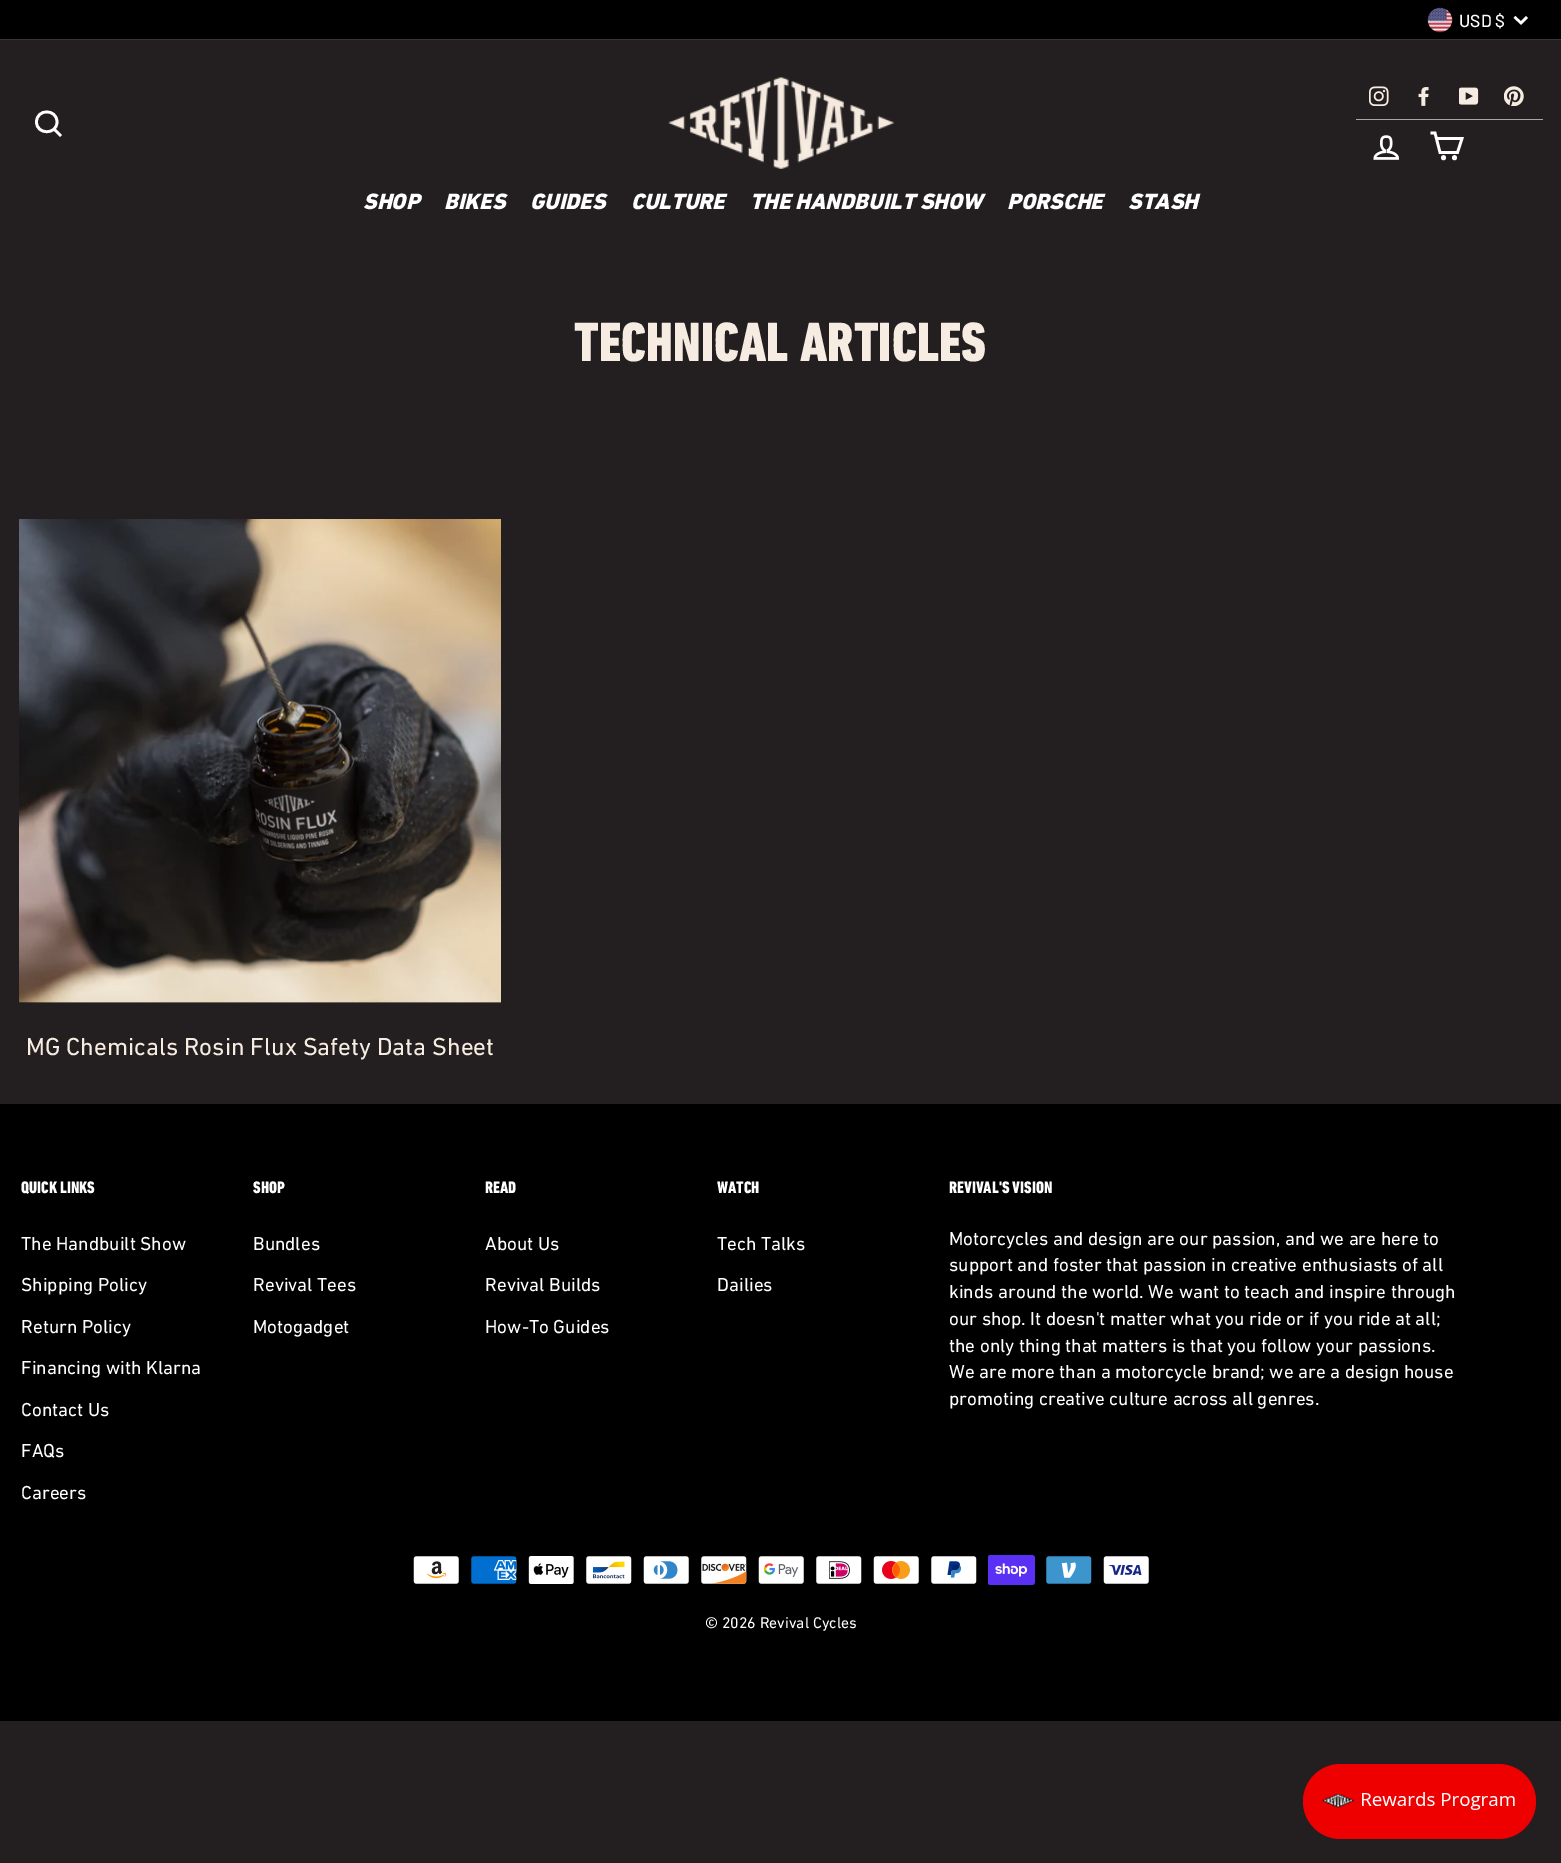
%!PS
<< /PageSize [1561 1863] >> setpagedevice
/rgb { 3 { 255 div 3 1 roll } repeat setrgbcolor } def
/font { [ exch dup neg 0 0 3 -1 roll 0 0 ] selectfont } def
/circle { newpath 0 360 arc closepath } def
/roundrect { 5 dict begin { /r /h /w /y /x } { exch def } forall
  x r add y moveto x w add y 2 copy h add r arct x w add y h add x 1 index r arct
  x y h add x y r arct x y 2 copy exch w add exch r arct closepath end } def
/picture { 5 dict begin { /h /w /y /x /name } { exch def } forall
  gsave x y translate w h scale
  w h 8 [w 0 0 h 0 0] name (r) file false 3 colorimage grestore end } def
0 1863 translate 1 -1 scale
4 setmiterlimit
35 31 32 rgb
0 0 1561 1863 rectfill
0 0 0 rgb
0 0 1561 39 rectfill
(img/1.rgb) 1427 7 26 26 picture
255 255 255 rgb
2.5 setlinewidth
1514.5 17 moveto 1521 23 lineto 1527 17 lineto stroke
57 53 54 rgb
0 39 1561 1 rectfill
255 255 255 rgb
2.7 setlinewidth
57 122 moveto 57 135 36.5 135 36.5 122 curveto 36.5 108.5 57 108.5 57 122 curveto closepath 61 136 moveto 54 129 lineto stroke
(img/2.rgb) 668 77 226 92 picture
167 165 166 rgb
1356 119 187 1 rectfill
(img/3.rgb) 1369 86 20 20 picture
(img/4.rgb) 1418 87 11 19 picture
(img/5.rgb) 1459 87 20 18 picture
(img/6.rgb) 1504 86 20 20 picture
(img/7.rgb) 1373 135 27 25 picture
255 255 255 rgb
1436.5 138.5 moveto 1462 138.5 lineto 1457.5 152.5 lineto 1440 152.5 lineto 1435 133 lineto 1430.5 133 lineto stroke
1443.5 157.7 1.1 circle stroke
1454.5 157.7 1.1 circle stroke
0 0 0 rgb
19 1002 482 1 rectfill
(img/8.rgb) 19 519 482 484 picture
0 1104 1561 617 rectfill
(img/9.rgb) 413 1556 46 28 picture
(img/10.rgb) 471 1556 46 28 picture
(img/11.rgb) 528 1556 46 28 picture
(img/12.rgb) 586 1556 46 28 picture
(img/13.rgb) 643 1556 46 28 picture
(img/14.rgb) 701 1556 46 28 picture
(img/15.rgb) 758 1556 46 28 picture
(img/16.rgb) 816 1556 46 28 picture
(img/17.rgb) 873 1556 46 28 picture
(img/18.rgb) 931 1556 46 28 picture
(img/19.rgb) 988 1555 47 30 picture
(img/20.rgb) 1046 1556 46 28 picture
(img/21.rgb) 1103 1556 46 28 picture
238 0 0 rgb
1303 1764 233 75 37.5 roundrect fill
(img/22.rgb) 1322 1792 193 18 picture
/Barlow-Medium 17.5 font
255 255 255 rgb
1459 27 moveto (USD $) show
/DINNext-BlackItalic 22.5 font
[
  [(SHOP) 363 209]
  [(BIKES) 444 209]
  [(GUIDES) 530 209]
  [(CULTURE) 631 209]
  [(THE HANDBUILT SHOW) 750 209]
  [(PORSCHE) 1007 209]
  [(STASH) 1128 209]
] { aload pop moveto show } forall
/DINNext-Black 56.25 font
247 236 225 rgb
574 361 moveto (TECHNICAL ARTICLES) show
/DINNext-Regular 25 font
26 1055 moveto (MG Chemicals Rosin Flux Safety Data Sheet) show
/DINNext-Black 17 font
255 255 255 rgb
21 1193 moveto (QUICK LINKS) show
/DINNext-Regular 19.1 font
[
  [(The Handbuilt Show) 21 1250]
  [(Shipping Policy) 21 1291]
  [(Return Policy) 21 1333]
  [(Financing with Klarna) 21 1374]
  [(Contact Us) 21 1416]
  [(FAQs) 21 1457]
  [(Careers) 21 1499]
] { aload pop moveto show } forall
/DINNext-Black 17 font
253 1193 moveto (SHOP) show
/DINNext-Regular 19.1 font
[
  [(Bundles) 253 1250]
  [(Revival Tees) 253 1291]
  [(Motogadget) 253 1333]
] { aload pop moveto show } forall
/DINNext-Black 17 font
485 1193 moveto (READ) show
/DINNext-Regular 19.1 font
[
  [(About Us) 485 1250]
  [(Revival Builds) 485 1291]
  [(How-To Guides) 485 1333]
] { aload pop moveto show } forall
/DINNext-Black 17 font
717 1193 moveto (WATCH) show
/DINNext-Regular 19.1 font
717 1250 moveto (Tech Talks) show
717 1291 moveto (Dailies) show
/DINNext-Black 17 font
949 1193 moveto (REVIVAL'S VISION) show
/DINNext-Regular 19.1 font
[
  [(Motorcycles and design are our passion, and we are here to) 949 1245]
  [(support and foster that passion in creative enthusiasts of all) 949 1271]
  [(kinds around the world. We want to teach and inspire through) 949 1298]
  [(our shop. It doesn't matter what you ride or if you ride at all;) 949 1325]
  [(the only thing that matters is that you follow your passions.) 949 1352]
  [(We are more than a motorcycle brand; we are a design house) 949 1378]
  [(promoting creative culture across all genres.) 949 1405]
] { aload pop moveto show } forall
/DINNext-Regular 15.75 font
705 1628 moveto (© 2026 Revival Cycles) show
showpage
